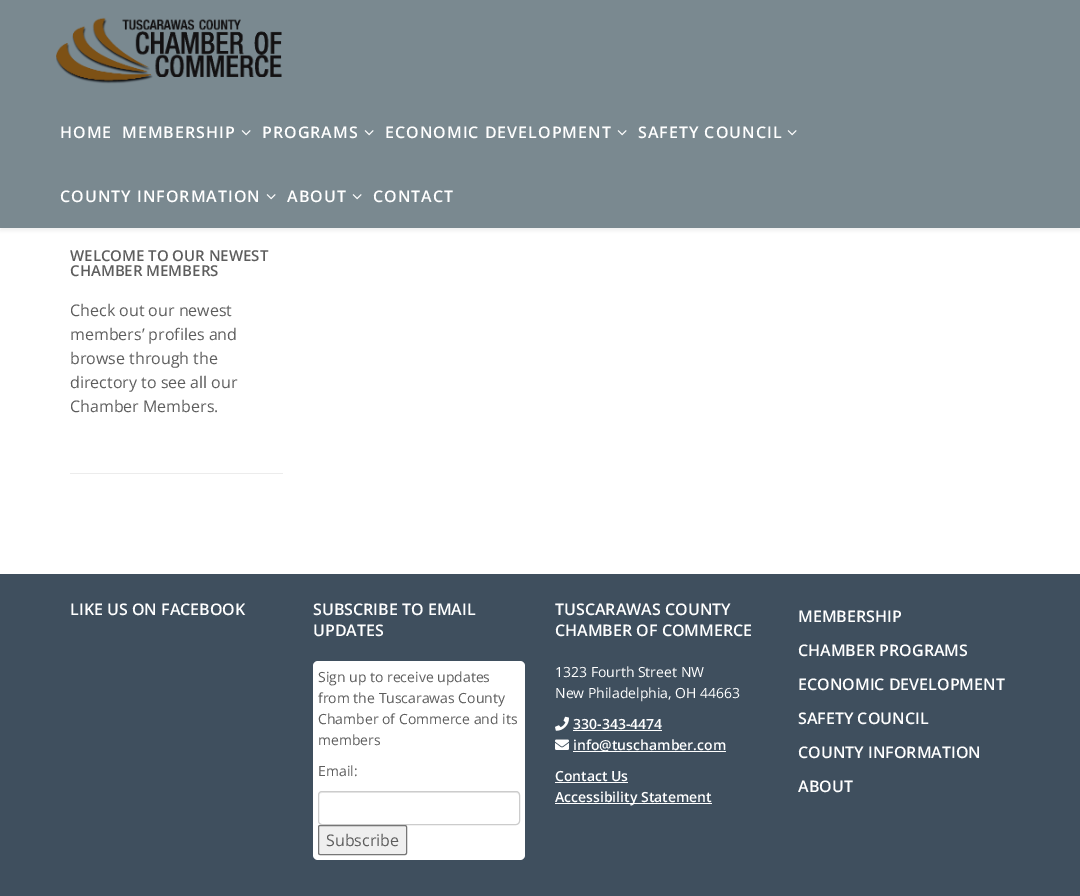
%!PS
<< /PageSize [1080 896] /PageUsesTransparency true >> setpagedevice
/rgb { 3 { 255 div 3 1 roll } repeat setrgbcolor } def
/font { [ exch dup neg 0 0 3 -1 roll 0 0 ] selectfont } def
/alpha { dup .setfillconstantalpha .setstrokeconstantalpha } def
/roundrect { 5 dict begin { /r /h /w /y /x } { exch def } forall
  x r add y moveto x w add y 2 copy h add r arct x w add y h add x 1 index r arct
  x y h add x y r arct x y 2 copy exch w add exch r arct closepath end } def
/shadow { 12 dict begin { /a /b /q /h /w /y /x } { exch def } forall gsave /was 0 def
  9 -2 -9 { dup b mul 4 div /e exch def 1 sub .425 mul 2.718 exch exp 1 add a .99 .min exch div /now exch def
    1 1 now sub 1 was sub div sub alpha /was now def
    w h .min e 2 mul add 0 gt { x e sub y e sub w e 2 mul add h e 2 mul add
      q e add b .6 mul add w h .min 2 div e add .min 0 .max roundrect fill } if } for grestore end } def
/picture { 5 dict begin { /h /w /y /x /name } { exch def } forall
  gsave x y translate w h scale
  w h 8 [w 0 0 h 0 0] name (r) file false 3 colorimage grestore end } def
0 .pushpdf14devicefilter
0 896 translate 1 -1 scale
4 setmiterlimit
255 255 255 rgb
0 0 1080 896 rectfill
0 0 0 rgb
0 3 1080 228 0 1.5 0.05 shadow
122 137 144 rgb
0 0 1080 228 rectfill
(img/1.rgb) 56 17 226 67 picture
(img/2.rgb) 241 130 10 6 picture
(img/2.rgb) 364 130 10 6 picture
(img/2.rgb) 617 130 10 6 picture
(img/2.rgb) 787 130 10 6 picture
(img/2.rgb) 266 194 10 6 picture
(img/2.rgb) 352 194 10 6 picture
236 236 236 rgb
70 473 213 1 rectfill
63 79 94 rgb
0 574 1080 322 rectfill
255 255 255 rgb
313 661 212 199 5 roundrect fill
236 236 236 rgb
322 793 moveto 516 793 lineto 518 793 519 794 519 796 curveto 519 794 518 792 516 792 curveto 322 792 lineto 320 792 319 794 319 796 curveto 319 794 320 793 322 793 curveto closepath fill
204 204 204 rgb
318.5 791.5 201 33 3.5 roundrect stroke
239 239 239 rgb
318.5 825.5 88 29 1.5 roundrect gsave fill grestore
118 118 118 rgb
stroke
(img/3.rgb) 555 716 14 15 picture
255 255 255 rgb
573 730 89 1 rectfill
(img/4.rgb) 555 739 14 11 picture
[
  [573 751 153 1 255 255 255]
  [555 782 73 1 255 255 255]
  [555 803 157 1 255 255 255]
] { aload pop rgb rectfill } forall
/OpenSans-SemiBold 16 font
60 138 moveto 1 0 (HOME) ashow
122 138 moveto 1 0 (MEMBERSHIP) ashow
262 138 moveto 1 0 (PROGRAMS) ashow
385 138 moveto 1 0 (ECONOMIC DEVELOPMENT) ashow
638 138 moveto 1 0 (SAFETY COUNCIL) ashow
60 202 moveto 1 0 (COUNTY INFORMATION) ashow
287 202 moveto 1 0 (ABOUT) ashow
373 202 moveto 1 0 (CONTACT) ashow
/OpenSans-SemiBold 15 font
93 93 93 rgb
70 261 moveto (WELCOME TO OUR NEWEST) show
70 276 moveto (CHAMBER MEMBERS) show
/OpenSans-Regular 16 font
[
  [(Check out our newest) 70 316]
  [(members’ profiles and) 70 340]
  [(browse through the) 70 364]
  [(directory to see all our) 70 388]
  [(Chamber Members.) 70 412]
] { aload pop moveto show } forall
/OpenSans-SemiBold 16 font
255 255 255 rgb
[
  [(LIKE US ON FACEBOOK) 70 615]
  [(SUBSCRIBE TO EMAIL) 313 615]
  [(UPDATES) 313 636]
] { aload pop moveto show } forall
/OpenSans-Regular 14 font
93 93 93 rgb
[
  [(Sign up to receive updates) 318 682]
  [(from the Tuscarawas County) 318 703]
  [(Chamber of Commerce and its) 318 724]
  [(members) 318 745]
  [(Email:) 318 776]
] { aload pop moveto show } forall
/OpenSans-Regular 16 font
326 846 moveto (Subscribe) show
/OpenSans-SemiBold 16 font
255 255 255 rgb
555 615 moveto (TUSCARAWAS COUNTY) show
555 636 moveto (CHAMBER OF COMMERCE) show
/OpenSans-Regular 14 font
555 677 moveto (1323 Fourth Street NW) show
555 698 moveto (New Philadelphia, OH 44663) show
/OpenSans-SemiBold 14 font
[
  [(330-343-4474) 573 729]
  [(info@tuschamber.com) 573 750]
  [(Contact Us) 555 781]
  [(Accessibility Statement) 555 802]
] { aload pop moveto show } forall
/OpenSans-SemiBold 16 font
[
  [(MEMBERSHIP) 798 622]
  [(CHAMBER PROGRAMS) 798 656]
  [(ECONOMIC DEVELOPMENT) 798 690]
  [(SAFETY COUNCIL) 798 724]
  [(COUNTY INFORMATION) 798 758]
  [(ABOUT) 798 792]
] { aload pop moveto show } forall
.poppdf14devicefilter showpage
